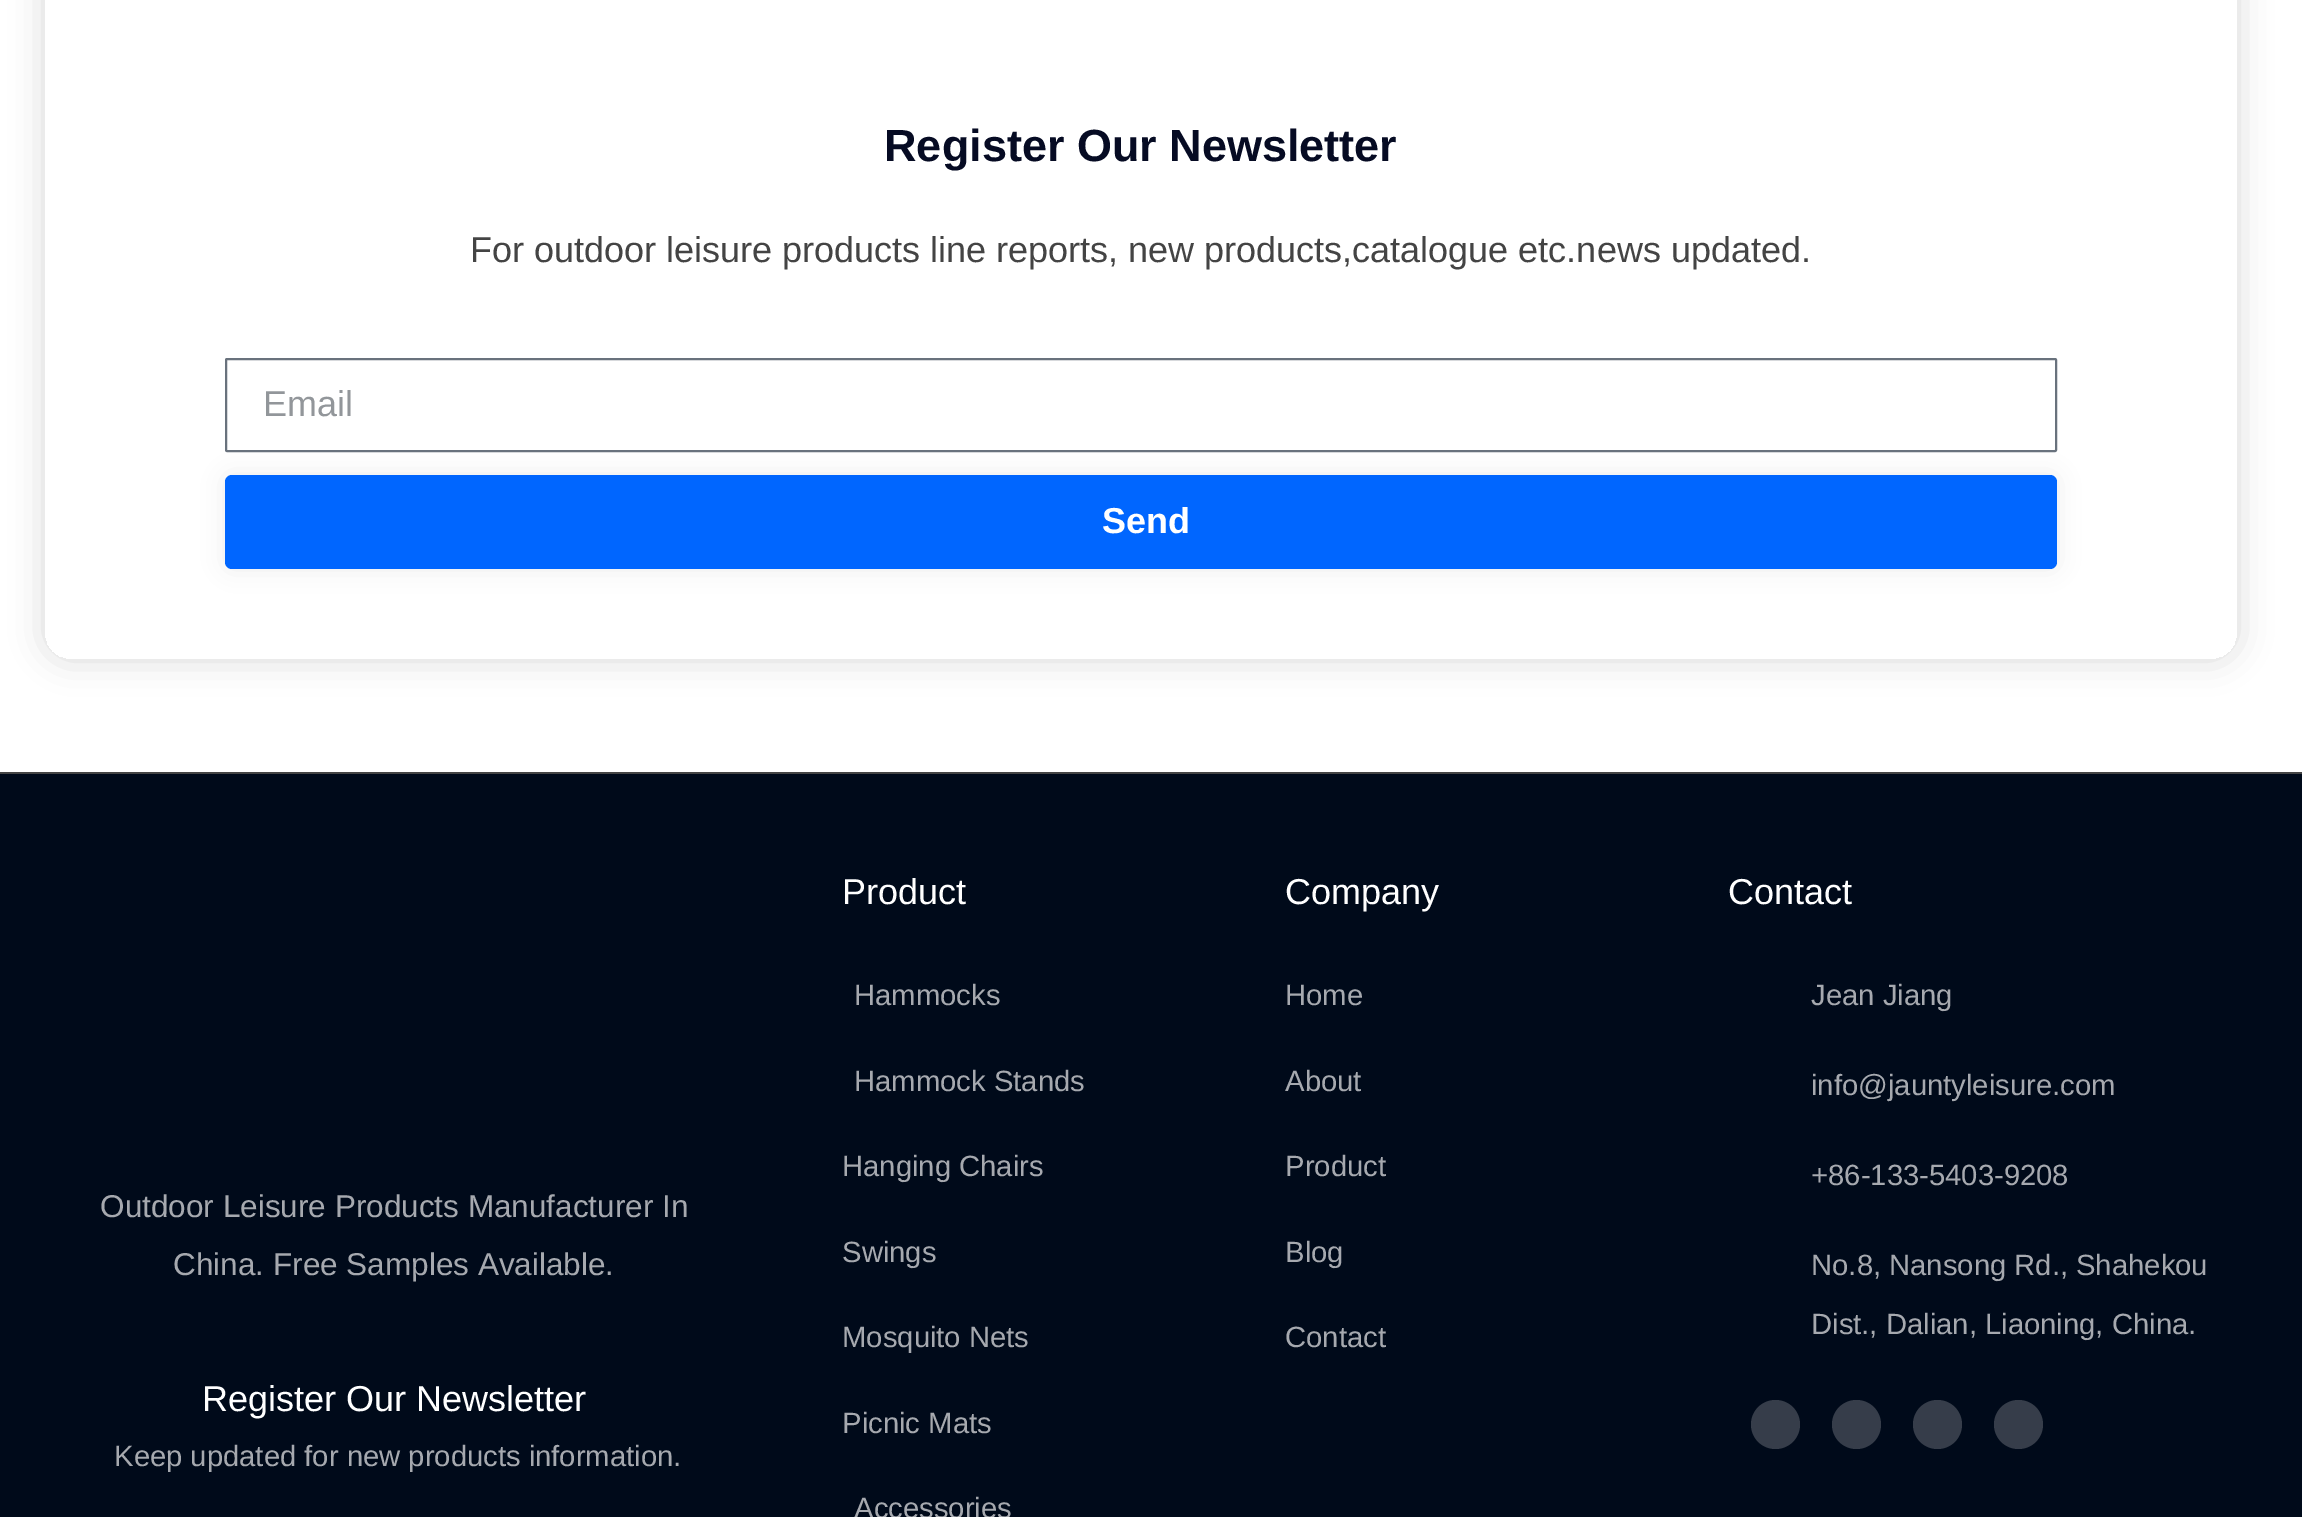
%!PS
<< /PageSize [2302 1517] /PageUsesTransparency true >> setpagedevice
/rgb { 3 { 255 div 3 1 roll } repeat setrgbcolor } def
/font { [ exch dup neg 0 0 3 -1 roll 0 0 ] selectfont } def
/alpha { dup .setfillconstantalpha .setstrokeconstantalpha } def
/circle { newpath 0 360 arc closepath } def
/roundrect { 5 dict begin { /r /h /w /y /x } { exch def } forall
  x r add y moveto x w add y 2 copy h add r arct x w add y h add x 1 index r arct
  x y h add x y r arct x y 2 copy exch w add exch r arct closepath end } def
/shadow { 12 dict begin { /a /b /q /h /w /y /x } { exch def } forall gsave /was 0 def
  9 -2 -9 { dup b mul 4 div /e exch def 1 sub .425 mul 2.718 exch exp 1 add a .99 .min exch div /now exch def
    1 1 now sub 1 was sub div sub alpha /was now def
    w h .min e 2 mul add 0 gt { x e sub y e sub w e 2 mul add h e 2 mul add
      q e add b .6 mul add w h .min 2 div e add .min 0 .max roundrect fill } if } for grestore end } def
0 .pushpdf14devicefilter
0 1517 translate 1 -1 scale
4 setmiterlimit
255 255 255 rgb
0 0 2302 1517 rectfill
gsave
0 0 moveto 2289 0 lineto 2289 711 lineto 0 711 lineto closepath 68 -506 moveto 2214 -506 lineto 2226.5 -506 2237 -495.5 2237 -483 curveto 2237 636 lineto 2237 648.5 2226.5 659 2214 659 curveto 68 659 lineto 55.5 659 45 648.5 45 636 curveto 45 -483 lineto 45 -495.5 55.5 -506 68 -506 curveto closepath eoclip newpath
0 0 0 rgb
45 -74 2192 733 23 17 0.15 shadow
grestore
105 114 125 rgb
2 setlinewidth
226 359 1830 92 1 roundrect stroke
0 0 0 rgb
225 475 1832 94 7 11 0.07 shadow
0 102 255 rgb
225 475 1832 94 7 roundrect fill
0 10 26 rgb
0 774 2302 743 rectfill
68 68 68 rgb
0 772 2302 2 rectfill
54 61 74 rgb
1775.5 1424.5 24.5 circle fill
1856.5 1424.5 24.5 circle fill
1937.5 1424.5 24.5 circle fill
2018.5 1424.5 24.5 circle fill
/LiberationSans-Bold 45 font
6 11 35 rgb
884 161 moveto (Register Our Newsletter) show
/LiberationSans-Regular 36 font
68 68 68 rgb
470 262 moveto (For outdoor leisure products line reports, new products,catalogue etc.news updated.) show
146 150 154 rgb
263 416 moveto (Email) show
/LiberationSans-Bold 36 font
255 255 255 rgb
1102 533 moveto (Send) show
/LiberationSans-Regular 31.5 font
166 169 175 rgb
100 1217 moveto (Outdoor Leisure Products Manufacturer In) show
173 1275 moveto (China. Free Samples Available.) show
/LiberationSans-Regular 36 font
255 255 255 rgb
202 1411 moveto (Register Our Newsletter) show
/LiberationSans-Regular 29.25 font
166 169 175 rgb
114 1466 moveto (Keep updated for new products information.) show
/LiberationSans-Regular 36 font
255 255 255 rgb
842 904 moveto (Product) show
/LiberationSans-Regular 29.25 font
166 169 175 rgb
[
  [(Hammocks) 854 1005]
  [(Hammock Stands) 854 1091]
  [(Hanging Chairs) 842 1176]
  [(Swings) 842 1262]
  [(Mosquito Nets) 842 1347]
  [(Picnic Mats) 842 1433]
  [(Accessories) 854 1518]
] { aload pop moveto show } forall
/LiberationSans-Regular 36 font
255 255 255 rgb
1285 904 moveto (Company) show
/LiberationSans-Regular 29.25 font
166 169 175 rgb
[
  [(Home) 1285 1005]
  [(About) 1285 1091]
  [(Product) 1285 1176]
  [(Blog) 1285 1262]
  [(Contact) 1285 1347]
] { aload pop moveto show } forall
/LiberationSans-Regular 36 font
255 255 255 rgb
1728 904 moveto (Contact) show
/LiberationSans-Regular 29.25 font
166 169 175 rgb
[
  [(Jean Jiang) 1811 1005]
  [(info@jauntyleisure.com) 1811 1095]
  [(+86-133-5403-9208) 1811 1185]
  [(No.8, Nansong Rd., Shahekou) 1811 1275]
  [(Dist., Dalian, Liaoning, China.) 1811 1334]
] { aload pop moveto show } forall
.poppdf14devicefilter showpage
